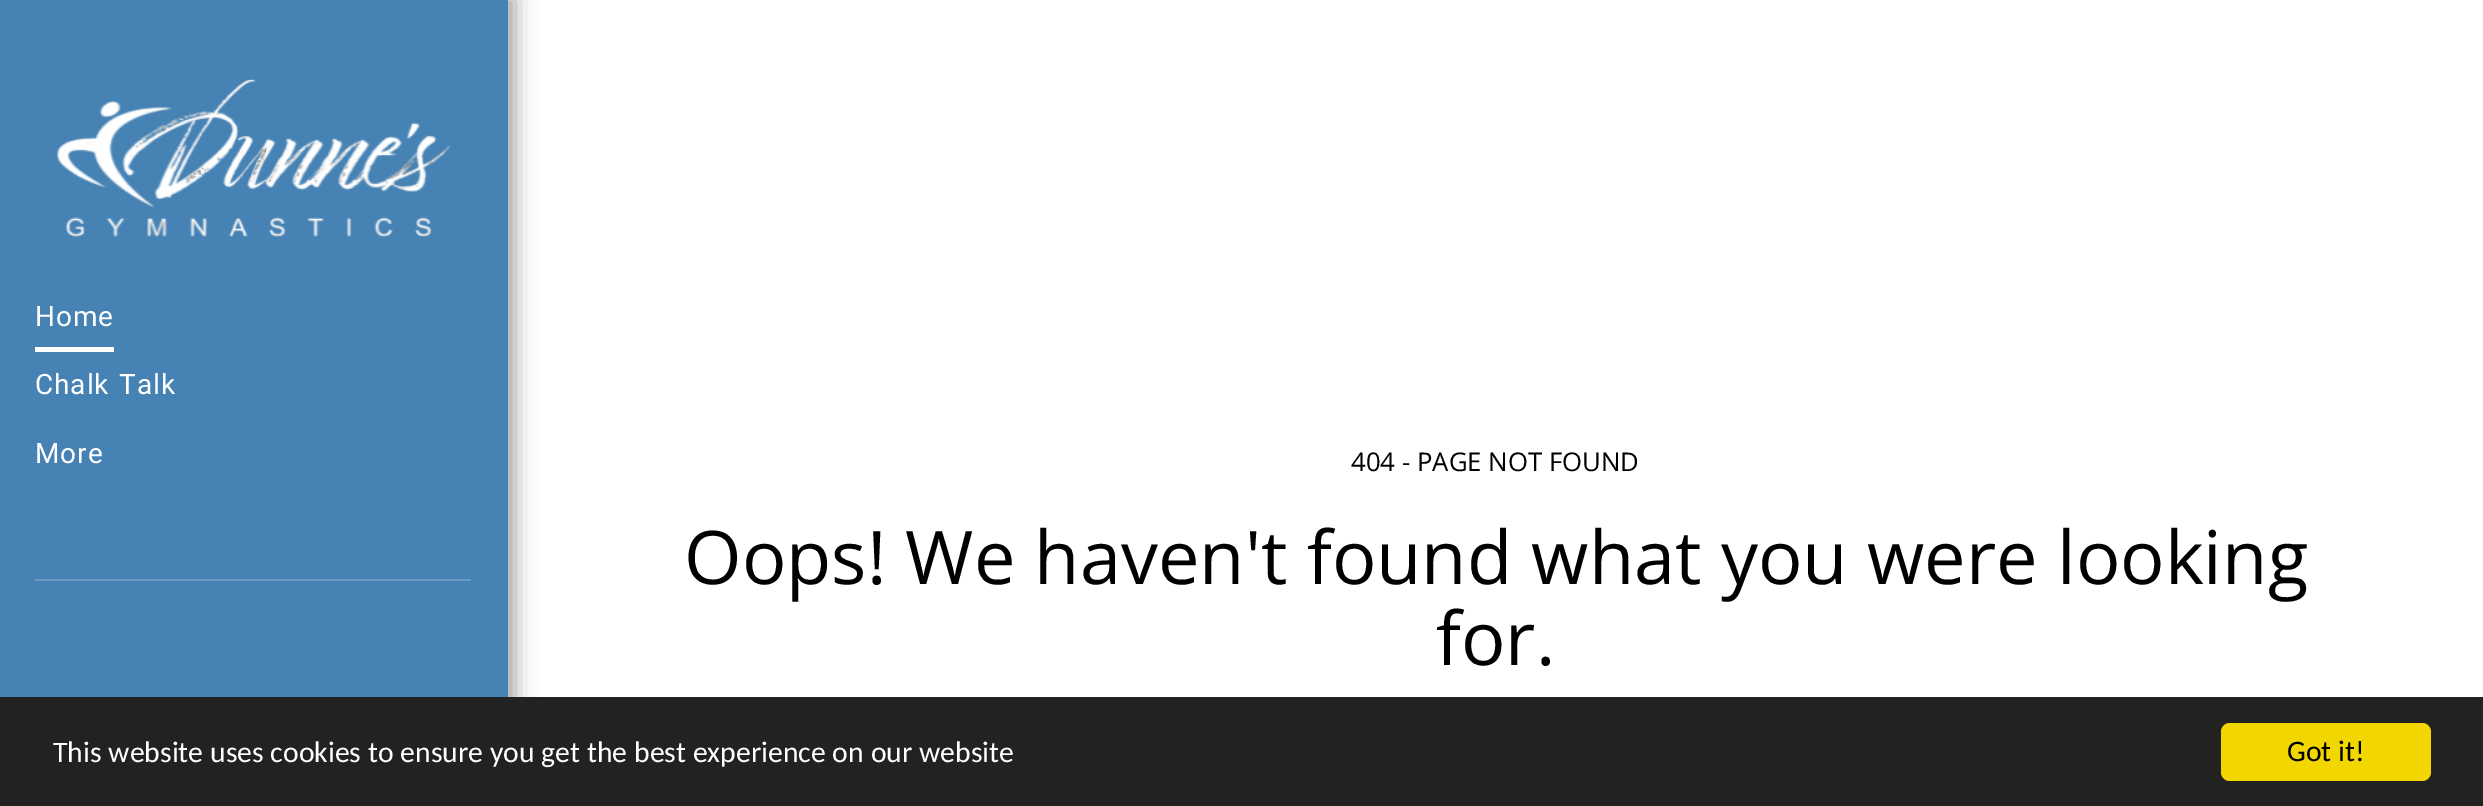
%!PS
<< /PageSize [2483 806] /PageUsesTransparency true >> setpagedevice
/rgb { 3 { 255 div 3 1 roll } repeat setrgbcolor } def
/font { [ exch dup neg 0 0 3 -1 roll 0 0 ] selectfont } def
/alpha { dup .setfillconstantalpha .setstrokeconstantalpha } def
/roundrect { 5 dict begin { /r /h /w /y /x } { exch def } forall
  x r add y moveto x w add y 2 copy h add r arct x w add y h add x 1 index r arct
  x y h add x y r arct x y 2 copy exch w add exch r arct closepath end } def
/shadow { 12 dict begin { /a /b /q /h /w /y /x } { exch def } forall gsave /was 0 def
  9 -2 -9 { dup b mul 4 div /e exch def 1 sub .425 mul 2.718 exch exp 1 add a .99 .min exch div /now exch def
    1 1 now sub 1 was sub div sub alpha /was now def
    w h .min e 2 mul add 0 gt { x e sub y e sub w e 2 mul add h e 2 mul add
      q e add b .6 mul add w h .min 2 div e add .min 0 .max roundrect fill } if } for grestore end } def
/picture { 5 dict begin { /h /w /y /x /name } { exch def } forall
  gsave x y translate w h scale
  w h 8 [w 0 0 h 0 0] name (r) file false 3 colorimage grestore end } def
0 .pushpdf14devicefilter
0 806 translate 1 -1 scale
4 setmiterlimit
255 255 255 rgb
0 0 2483 806 rectfill
0 0 0 rgb
0 -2 515 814 0 10.5 0.35 shadow
70 130 180 rgb
0 0 508 697 rectfill
(img/1.rgb) 56 78 394 159 picture
[
  [35 347 79 5 255 255 255]
  [35 579 436 2 107 155 195]
  [0 697 2483 109 34 34 34]
] { aload pop rgb rectfill } forall
241 214 0 rgb
2221 723 210 58 9 roundrect fill
/Roboto-Regular 28 font
255 255 255 rgb
35 326 moveto 0.9 0 (Home) ashow
35 394 moveto 2 0 32 0.9 0 (Chalk Talk) awidthshow
35 463 moveto 0.9 0 (More) ashow
/OpenSans-Regular 25.75 font
0 0 0 rgb
1351 471 moveto (404 - PAGE NOT FOUND) show
/OpenSans-Regular 74 font
684 584 moveto (Oops! We haven't found what you were looking) show
1436 665 moveto (for.) show
/Carlito-Regular 29.75 font
255 255 255 rgb
53 762 moveto (This website uses cookies to ensure you get the best experience on our website) show
0 0 0 rgb
2287 761 moveto (Got it!) show
.poppdf14devicefilter showpage
